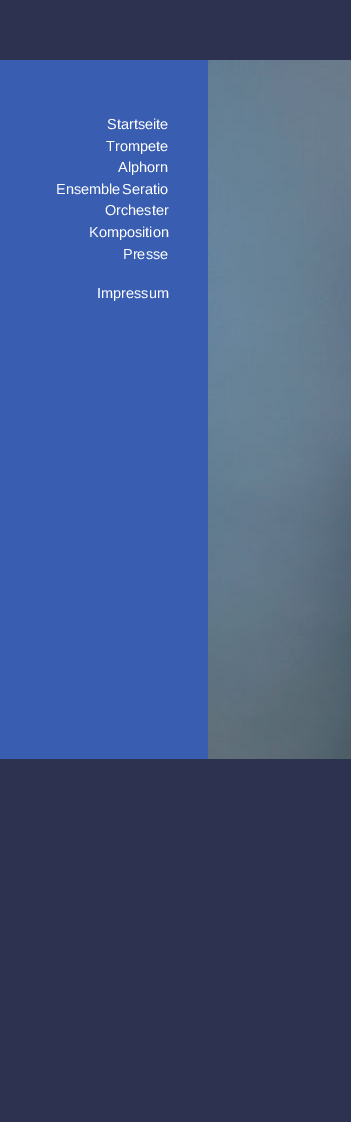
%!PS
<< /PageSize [351 1122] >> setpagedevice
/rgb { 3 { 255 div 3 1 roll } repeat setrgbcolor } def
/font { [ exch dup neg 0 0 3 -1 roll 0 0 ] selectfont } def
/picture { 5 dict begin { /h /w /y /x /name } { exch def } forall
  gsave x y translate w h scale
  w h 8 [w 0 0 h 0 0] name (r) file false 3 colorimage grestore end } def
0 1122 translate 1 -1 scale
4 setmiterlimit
44 50 80 rgb
0 0 351 1122 rectfill
57 94 177 rgb
0 60 208 699 rectfill
(img/1.rgb) 208 60 143 699 picture
/LiberationSans-Regular 14.5 font
255 255 255 rgb
[
  [(Startseite) 107 129]
  [(Trompete) 106 151]
  [(Alphorn) 118 172]
] { aload pop moveto show } forall
56 194 moveto -2 0 32 (Ensemble Seratio) widthshow
[
  [(Orchester) 105 215]
  [(Komposition) 89 237]
  [(Presse) 123 259]
  [(Impressum) 97 298]
] { aload pop moveto show } forall
showpage
